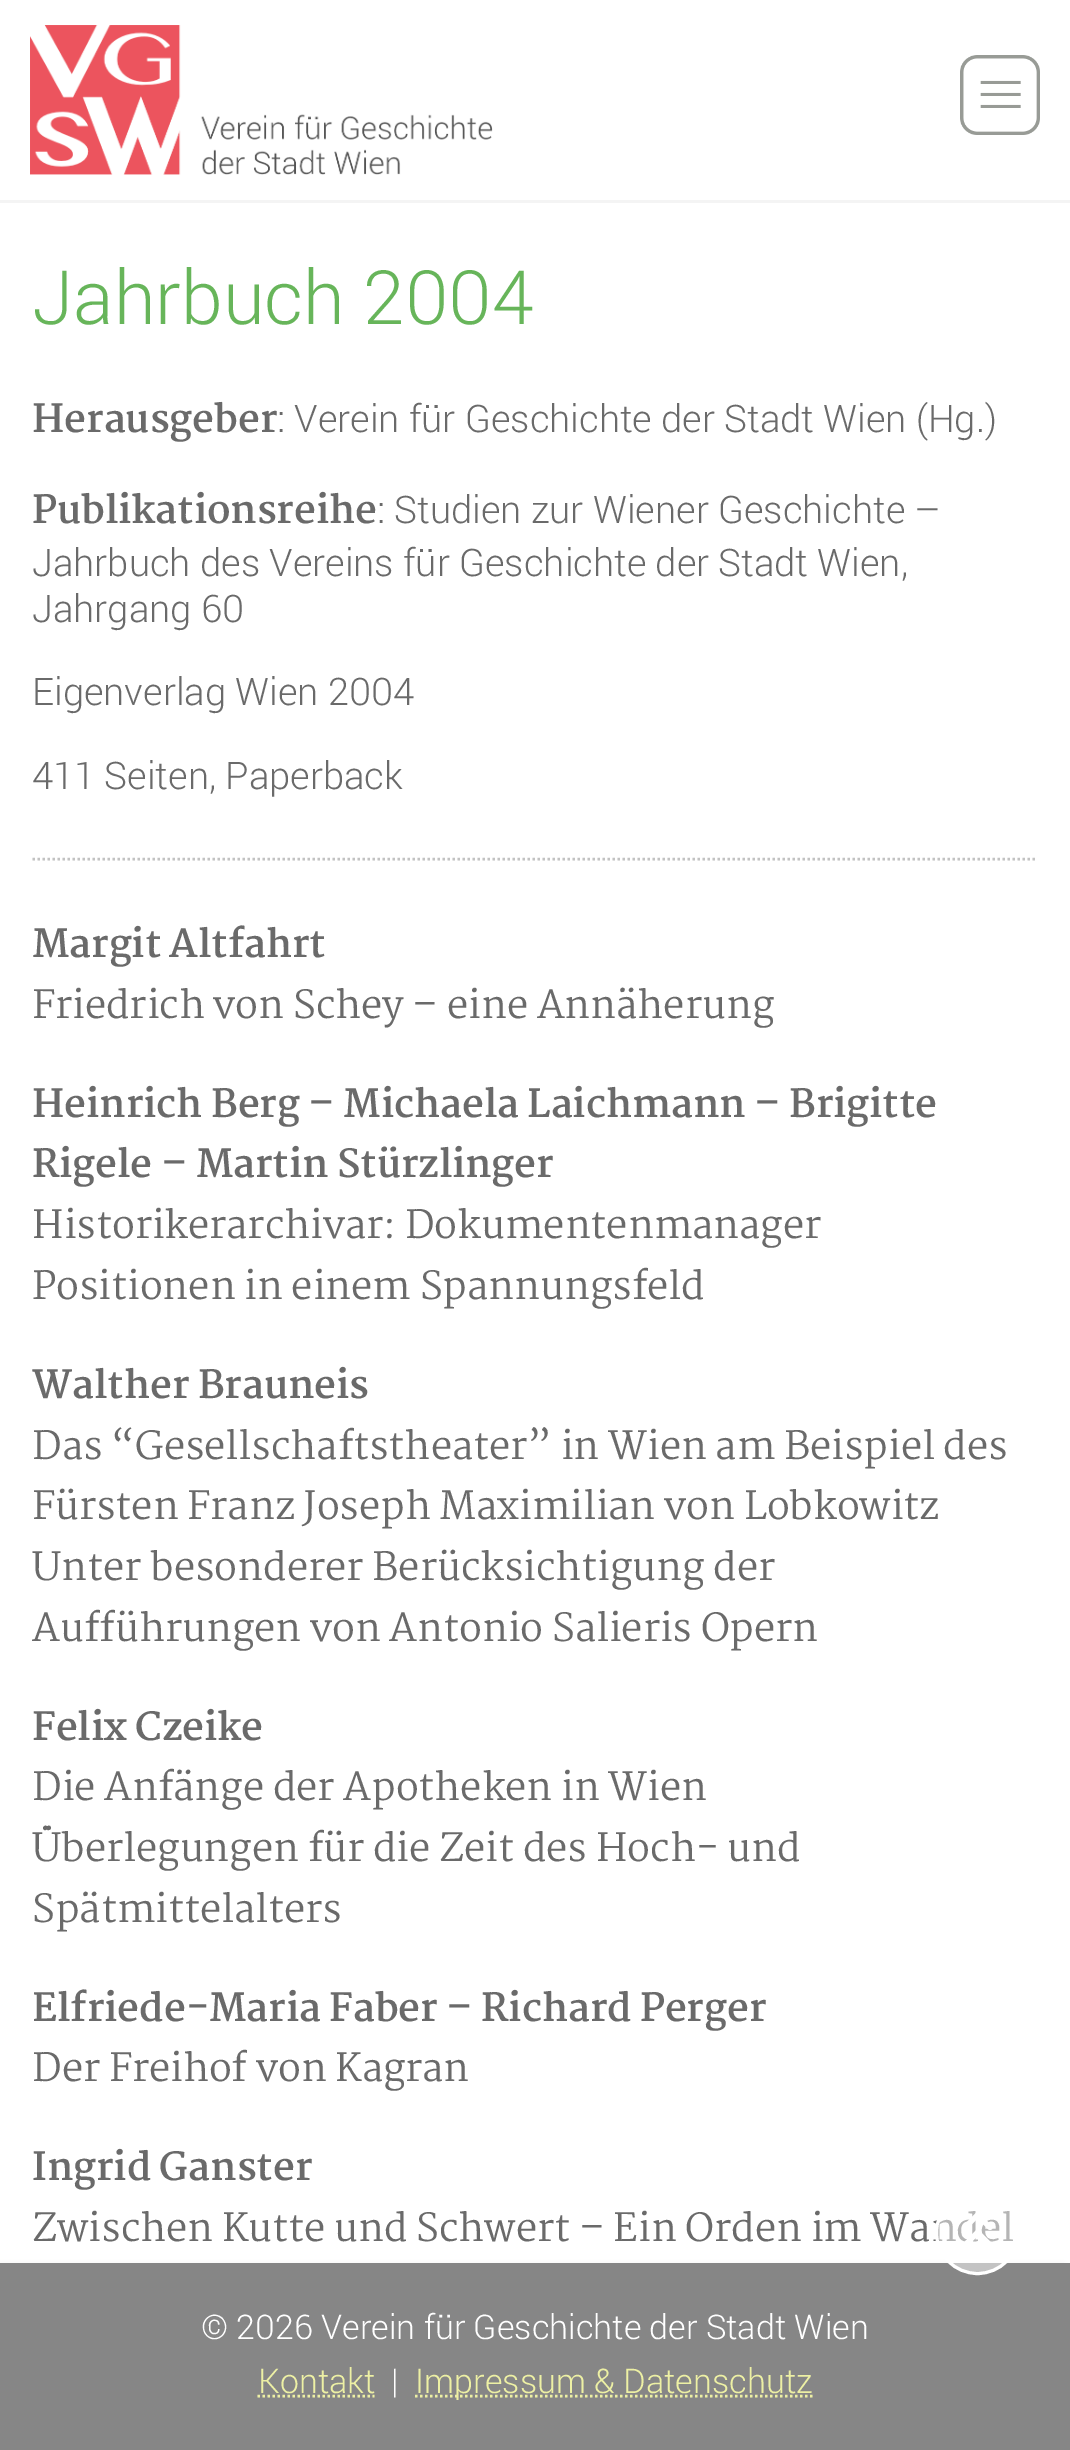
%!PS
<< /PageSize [1070 2450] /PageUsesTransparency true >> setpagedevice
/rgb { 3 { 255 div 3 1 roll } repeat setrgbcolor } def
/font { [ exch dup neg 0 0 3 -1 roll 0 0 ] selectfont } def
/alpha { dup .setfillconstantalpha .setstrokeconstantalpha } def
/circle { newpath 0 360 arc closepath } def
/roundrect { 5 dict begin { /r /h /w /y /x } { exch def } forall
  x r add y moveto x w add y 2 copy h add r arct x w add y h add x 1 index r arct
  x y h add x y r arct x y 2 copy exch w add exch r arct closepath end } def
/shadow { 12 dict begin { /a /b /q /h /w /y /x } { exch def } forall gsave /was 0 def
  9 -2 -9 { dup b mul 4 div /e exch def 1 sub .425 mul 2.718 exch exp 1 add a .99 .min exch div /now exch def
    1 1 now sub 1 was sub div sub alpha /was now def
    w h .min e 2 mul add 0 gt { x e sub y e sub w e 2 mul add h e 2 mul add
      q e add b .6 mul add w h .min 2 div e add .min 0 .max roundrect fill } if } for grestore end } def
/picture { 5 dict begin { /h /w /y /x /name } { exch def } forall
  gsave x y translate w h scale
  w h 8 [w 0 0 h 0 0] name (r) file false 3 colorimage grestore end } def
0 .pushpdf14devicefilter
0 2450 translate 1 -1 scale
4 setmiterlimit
255 255 255 rgb
0 0 1070 2450 rectfill
244 244 244 rgb
0 200 1070 3 rectfill
(img/1.rgb) 30 25 463 150 picture
(img/2.rgb) 960 55 80 80 picture
194 194 194 rgb
2.5 setlinewidth
[2.5 2.5] 0 setdash
32.5 859 moveto 1037.5 859 lineto stroke
217 217 217 rgb
-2 2265 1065 183 0 2.5 1 shadow
134 134 134 rgb
0 2263 1070 187 rectfill
237 240 164 rgb
257.5 2396 moveto 374.5 2396 lineto stroke
415 2396 moveto 812.5 2396 lineto stroke
/Roboto-Light 75 font
103 181 90 rgb
32 324 moveto (Jahrbuch 2004) show
/Martel-Bold 38 font
106 106 106 rgb
32 432 moveto (Herausgeber) show
/Roboto-Light 38 font
277 432 moveto (: Verein für Geschichte der Stadt Wien \(Hg.\)) show
/Martel-Bold 38 font
32 523 moveto (Publikationsreihe) show
/Roboto-Light 38 font
[
  [(: Studien zur Wiener Geschichte –) 377 523]
  [(Jahrbuch des Vereins für Geschichte der Stadt Wien,) 32 576]
  [(Jahrgang 60) 32 622]
  [(Eigenverlag Wien 2004) 32 705]
  [(411 Seiten, Paperback) 32 789]
] { aload pop moveto show } forall
/Martel-Bold 38 font
32 957 moveto (Margit Altfahrt) show
/Martel-Regular 38 font
32 1018 moveto (Friedrich von Schey – eine Annäherung) show
/Martel-Bold 38 font
32 1117 moveto (Heinrich Berg – Michaela Laichmann – Brigitte) show
32 1177 moveto (Rigele – Martin Stürzlinger) show
/Martel-Regular 38 font
32 1238 moveto (Historikerarchivar: Dokumentenmanager) show
32 1299 moveto (Positionen in einem Spannungsfeld) show
/Martel-Bold 38 font
32 1398 moveto (Walther Brauneis) show
/Martel-Regular 38 font
[
  [(Das “Gesellschaftstheater” in Wien am Beispiel des) 32 1459]
  [(Fürsten Franz Joseph Maximilian von Lobkowitz) 32 1519]
  [(Unter besonderer Berücksichtigung der) 32 1580]
  [(Aufführungen von Antonio Salieris Opern) 32 1641]
] { aload pop moveto show } forall
/Martel-Bold 38 font
32 1740 moveto (Felix Czeike) show
/Martel-Regular 38 font
[
  [(Die Anfänge der Apotheken in Wien) 32 1800]
  [(Überlegungen für die Zeit des Hoch- und) 32 1861]
  [(Spätmittelalters) 32 1922]
] { aload pop moveto show } forall
/Martel-Bold 38 font
32 2021 moveto (Elfriede-Maria Faber – Richard Perger) show
/Martel-Regular 38 font
32 2081 moveto (Der Freihof von Kagran) show
/Martel-Bold 38 font
32 2180 moveto (Ingrid Ganster) show
/Martel-Regular 38 font
32 2241 moveto (Zwischen Kutte und Schwert – Ein Orden im Wandel) show
/Roboto-Light 34 font
255 255 255 rgb
201 2339 moveto (© 2026 Verein für Geschichte der Stadt Wien) show
237 240 164 rgb
258 2393 moveto (Kontakt) show
255 255 255 rgb
391 2393 moveto (|) show
237 240 164 rgb
415 2393 moveto (Impressum & Datenschutz) show
0.5 alpha
255 255 255 rgb
977.5 2232.5 41 circle fill
1 alpha
3 setlinewidth
[] 0 setdash
977.5 2232.5 41 circle stroke
5 setlinewidth
1 setlinecap
1 setlinejoin
990 2227.5 moveto 977.5 2215 lineto 965 2227.5 lineto 990 2245 moveto 977.5 2232.5 lineto 965 2245 lineto stroke
.poppdf14devicefilter showpage
